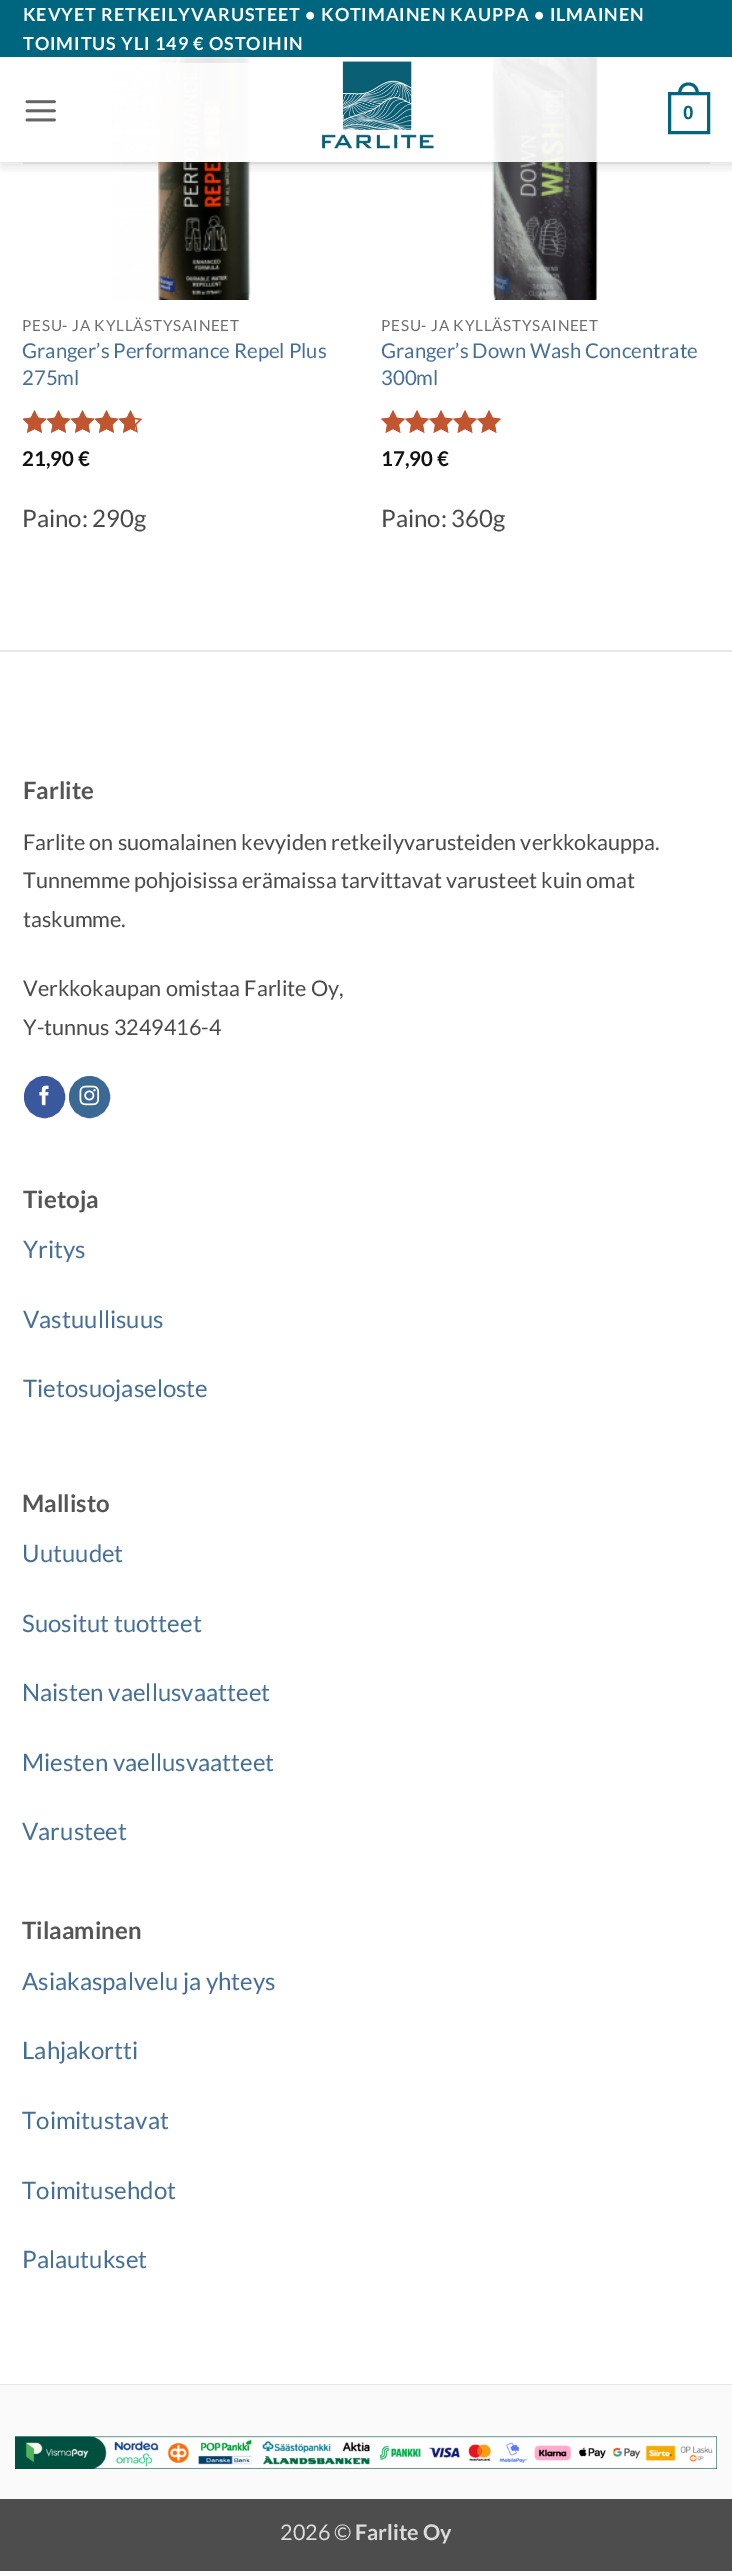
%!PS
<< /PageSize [732 2571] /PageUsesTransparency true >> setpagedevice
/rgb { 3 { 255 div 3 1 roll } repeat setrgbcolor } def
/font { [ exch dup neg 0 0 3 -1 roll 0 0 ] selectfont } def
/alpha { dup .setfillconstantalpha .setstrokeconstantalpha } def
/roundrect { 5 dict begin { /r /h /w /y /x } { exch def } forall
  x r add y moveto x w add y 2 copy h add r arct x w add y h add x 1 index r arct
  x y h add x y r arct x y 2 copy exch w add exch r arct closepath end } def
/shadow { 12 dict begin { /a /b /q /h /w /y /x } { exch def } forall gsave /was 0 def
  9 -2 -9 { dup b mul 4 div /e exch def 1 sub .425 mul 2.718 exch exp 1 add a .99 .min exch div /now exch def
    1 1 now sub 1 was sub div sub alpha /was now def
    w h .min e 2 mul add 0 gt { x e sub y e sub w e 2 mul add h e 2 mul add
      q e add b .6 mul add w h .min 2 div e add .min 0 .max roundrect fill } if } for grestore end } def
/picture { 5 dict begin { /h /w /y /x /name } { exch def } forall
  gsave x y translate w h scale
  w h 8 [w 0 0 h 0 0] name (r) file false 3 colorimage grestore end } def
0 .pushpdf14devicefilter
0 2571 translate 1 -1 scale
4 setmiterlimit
255 255 255 rgb
0 0 732 2571 rectfill
(img/3.rgb) 112 57 139 243 picture
0.81 alpha
158 63 93 99 rectfill
1 alpha
(img/6.rgb) 492 57 106 243 picture
gsave
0 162 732 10 rectclip
0 0 0 rgb
2 2 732 162 0 7.5 0.15 shadow
grestore
0 101 127 rgb
0 0 732 57 rectfill
0.9 alpha
255 255 255 rgb
158 57 440 105 rectfill
1 alpha
(img/1.rgb) 25 100 31 22 picture
(img/2.rgb) 321 61 113 88 picture
0 101 127 rgb
3 setlinewidth
669.5 93.5 39 39 rectstroke
688.5 82.5 moveto 695.5 82.5 699 88 699 94.5 curveto 678 94.5 lineto 678 88 681.5 82.5 688.5 82.5 curveto closepath 688.5 85.5 moveto 694 85.5 696 90 696 94.5 curveto 681 94.5 lineto 681 90 683 85.5 688.5 85.5 curveto closepath eofill
0.1 alpha
74 74 74 rgb
23 162 687 2 rectfill
1 alpha
(img/4.rgb) 23 410 120 23 picture
(img/5.rgb) 23 410 112 23 picture
(img/7.rgb) 381 410 120 23 picture
(img/8.rgb) 381 410 120 23 picture
230 230 230 rgb
0 650 732 2 rectfill
58 88 157 rgb
25 1077 39 40 19.5 roundrect gsave fill grestore
2 setlinewidth
stroke
(img/9.rgb) 39 1085 10 21 picture
59 105 148 rgb
70 1077 39 40 19.5 roundrect gsave fill grestore
stroke
(img/10.rgb) 79 1085 21 21 picture
230 230 230 rgb
0 2384 732 1 rectfill
250 250 250 rgb
0 2385 732 114 rectfill
(img/11.rgb) 15 2436 702 33 picture
77 77 77 rgb
0 2499 732 72 rectfill
/Lato-Bold 18 font
255 255 255 rgb
23 21 moveto 0.9 0 (KEVYET RETKEILYVARUSTEET • KOTIMAINEN KAUPPA • ILMAINEN) ashow
23 50 moveto 0.9 0 (TOIMITUS YLI 149 € OSTOIHIN) ashow
/LiberationSans-Bold 19 font
0 101 127 rgb
683 119 moveto (0) show
/Lato-Regular 15.25 font
110 110 110 rgb
22 331 moveto 0.75 0 (PESU- JA KYLLÄSTYSAINEET) ashow
/Lato-Regular 20.4 font
69 111 150 rgb
22 358 moveto (Granger’s Performance Repel Plus) show
22 385 moveto (275ml) show
/Lato-Bold 20.4 font
17 17 17 rgb
22 466 moveto (21,90 €) show
/Lato-Regular 24 font
74 74 74 rgb
22 527 moveto (Paino: 290g) show
/Lato-Regular 15.25 font
110 110 110 rgb
381 331 moveto 0.75 0 (PESU- JA KYLLÄSTYSAINEET) ashow
/Lato-Regular 20.4 font
69 111 150 rgb
381 358 moveto (Granger’s Down Wash Concentrate) show
381 385 moveto (300ml) show
/Lato-Bold 20.4 font
17 17 17 rgb
381 466 moveto (17,90 €) show
/Lato-Regular 24 font
74 74 74 rgb
381 527 moveto (Paino: 360g) show
/Lato-Bold 24 font
85 85 85 rgb
23 799 moveto (Farlite) show
/Lato-Regular 21.6 font
74 74 74 rgb
[
  [(Farlite on suomalainen kevyiden retkeilyvarusteiden verkkokauppa.) 23 850]
  [(Tunnemme pohjoisissa erämaissa tarvittavat varusteet kuin omat) 23 888]
  [(taskumme.) 23 927]
  [(Verkkokaupan omistaa Farlite Oy,) 23 996]
  [(Y-tunnus 3249416-4) 23 1035]
] { aload pop moveto show } forall
/Lato-Bold 24 font
85 85 85 rgb
23 1208 moveto (Tietoja) show
/Lato-Regular 24 font
69 111 150 rgb
[
  [(Yritys) 23 1258]
  [(Vastuullisuus) 23 1328]
  [(Tietosuojaseloste) 23 1397]
] { aload pop moveto show } forall
/Lato-Bold 24 font
85 85 85 rgb
22 1512 moveto (Mallisto) show
/Lato-Regular 24 font
69 111 150 rgb
[
  [(Uutuudet) 22 1562]
  [(Suositut tuotteet) 22 1632]
  [(Naisten vaellusvaatteet) 22 1701]
  [(Miesten vaellusvaatteet) 22 1771]
  [(Varusteet) 22 1840]
] { aload pop moveto show } forall
/Lato-Bold 24 font
85 85 85 rgb
22 1939 moveto (Tilaaminen) show
/Lato-Regular 24 font
69 111 150 rgb
[
  [(Asiakaspalvelu ja yhteys) 22 1990]
  [(Lahjakortti) 22 2059]
  [(Toimitustavat) 22 2129]
  [(Toimitusehdot) 22 2199]
  [(Palautukset) 22 2268]
] { aload pop moveto show } forall
/Lato-Regular 21.6 font
219 219 219 rgb
280 2540 moveto (2026 ©) show
/Lato-Bold 21.6 font
355 2540 moveto (Farlite Oy) show
.poppdf14devicefilter showpage
